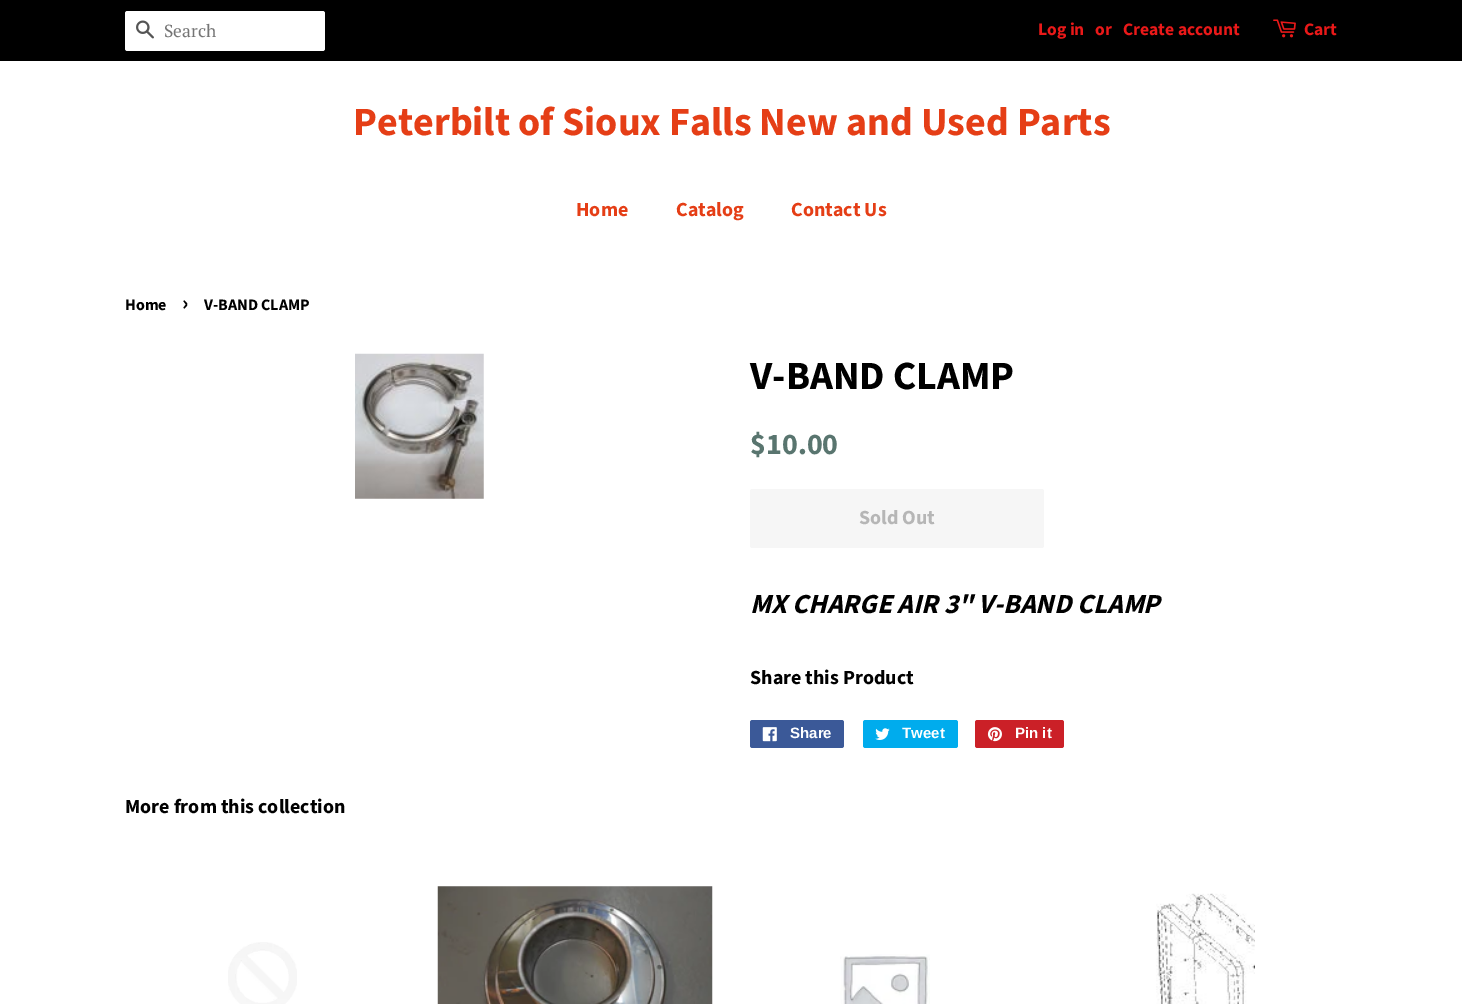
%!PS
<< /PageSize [1462 1004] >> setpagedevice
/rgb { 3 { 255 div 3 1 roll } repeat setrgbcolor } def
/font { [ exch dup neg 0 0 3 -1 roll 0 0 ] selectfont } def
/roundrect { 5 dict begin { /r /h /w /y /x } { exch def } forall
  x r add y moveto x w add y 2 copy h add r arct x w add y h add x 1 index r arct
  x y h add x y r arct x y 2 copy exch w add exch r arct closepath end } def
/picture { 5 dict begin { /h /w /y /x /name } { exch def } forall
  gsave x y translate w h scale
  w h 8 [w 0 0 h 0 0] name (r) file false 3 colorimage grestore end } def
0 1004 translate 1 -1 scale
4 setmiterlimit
255 255 255 rgb
0 0 1462 1004 rectfill
0 0 0 rgb
0 0 1462 61 rectfill
255 255 255 rgb
125 11 200 40 2.5 roundrect fill
(img/1.rgb) 136 20 18 19 picture
(img/2.rgb) 1273 19 23 19 picture
(img/3.rgb) 355 353 129 146 picture
246 246 246 rgb
750 489 294 59 2.5 roundrect fill
59 89 152 rgb
750 720 94 28 2.5 roundrect fill
(img/4.rgb) 762 727 15 15 picture
0 172 237 rgb
863 720 95 28 2.5 roundrect fill
(img/5.rgb) 875 728 15 12 picture
203 32 39 rgb
975 720 89 28 2.5 roundrect fill
(img/6.rgb) 987 727 15 15 picture
(img/7.rgb) 228 942 69 62 picture
(img/8.rgb) 437 886 276 118 picture
(img/9.rgb) 840 954 90 50 picture
(img/10.rgb) 1156 893 99 111 picture
/PTSerif-Regular 17.5 font
117 117 117 rgb
164 37 moveto (Search) show
/SourceSansPro-Bold 17.5 font
234 25 25 rgb
[
  [(Log in) 1038 35]
  [(or) 1095 35]
  [(Create account) 1123 35]
  [(Cart) 1304 35]
] { aload pop moveto show } forall
/SourceSansPro-Bold 40 font
229 62 22 rgb
353 135 moveto (Peterbilt of Sioux Falls New and Used Parts) show
/SourceSansPro-Bold 20 font
[
  [(Home) 576 216]
  [(Catalog) 676 216]
  [(Contact Us) 791 216]
] { aload pop moveto show } forall
/SourceSansPro-Bold 16 font
0 0 0 rgb
125 310 moveto (Home) show
/SourceSansPro-Bold 22 font
182 310 moveto (›) show
/SourceSansPro-Bold 16 font
204 310 moveto (V-BAND CLAMP) show
/SourceSansPro-Bold 40 font
750 389 moveto (V-BAND CLAMP) show
/SourceSansPro-Bold 30 font
89 117 111 rgb
750 454 moveto ($10.00) show
/SourceSansPro-Bold 20 font
182 182 182 rgb
859 524 moveto (Sold Out) show
/SourceSansPro-BoldItalic 27.5 font
0 0 0 rgb
750 613 moveto (MX CHARGE AIR 3" V-BAND CLAMP) show
/SourceSansPro-Bold 20 font
750 684 moveto (Share this Product) show
/LiberationSans-Bold 15 font
255 255 255 rgb
[
  [(Share) 790 738]
  [(Tweet) 902 738]
  [(Pin it) 1015 738]
] { aload pop moveto show } forall
/SourceSansPro-Bold 20 font
0 0 0 rgb
125 813 moveto (More from this collection) show
showpage
